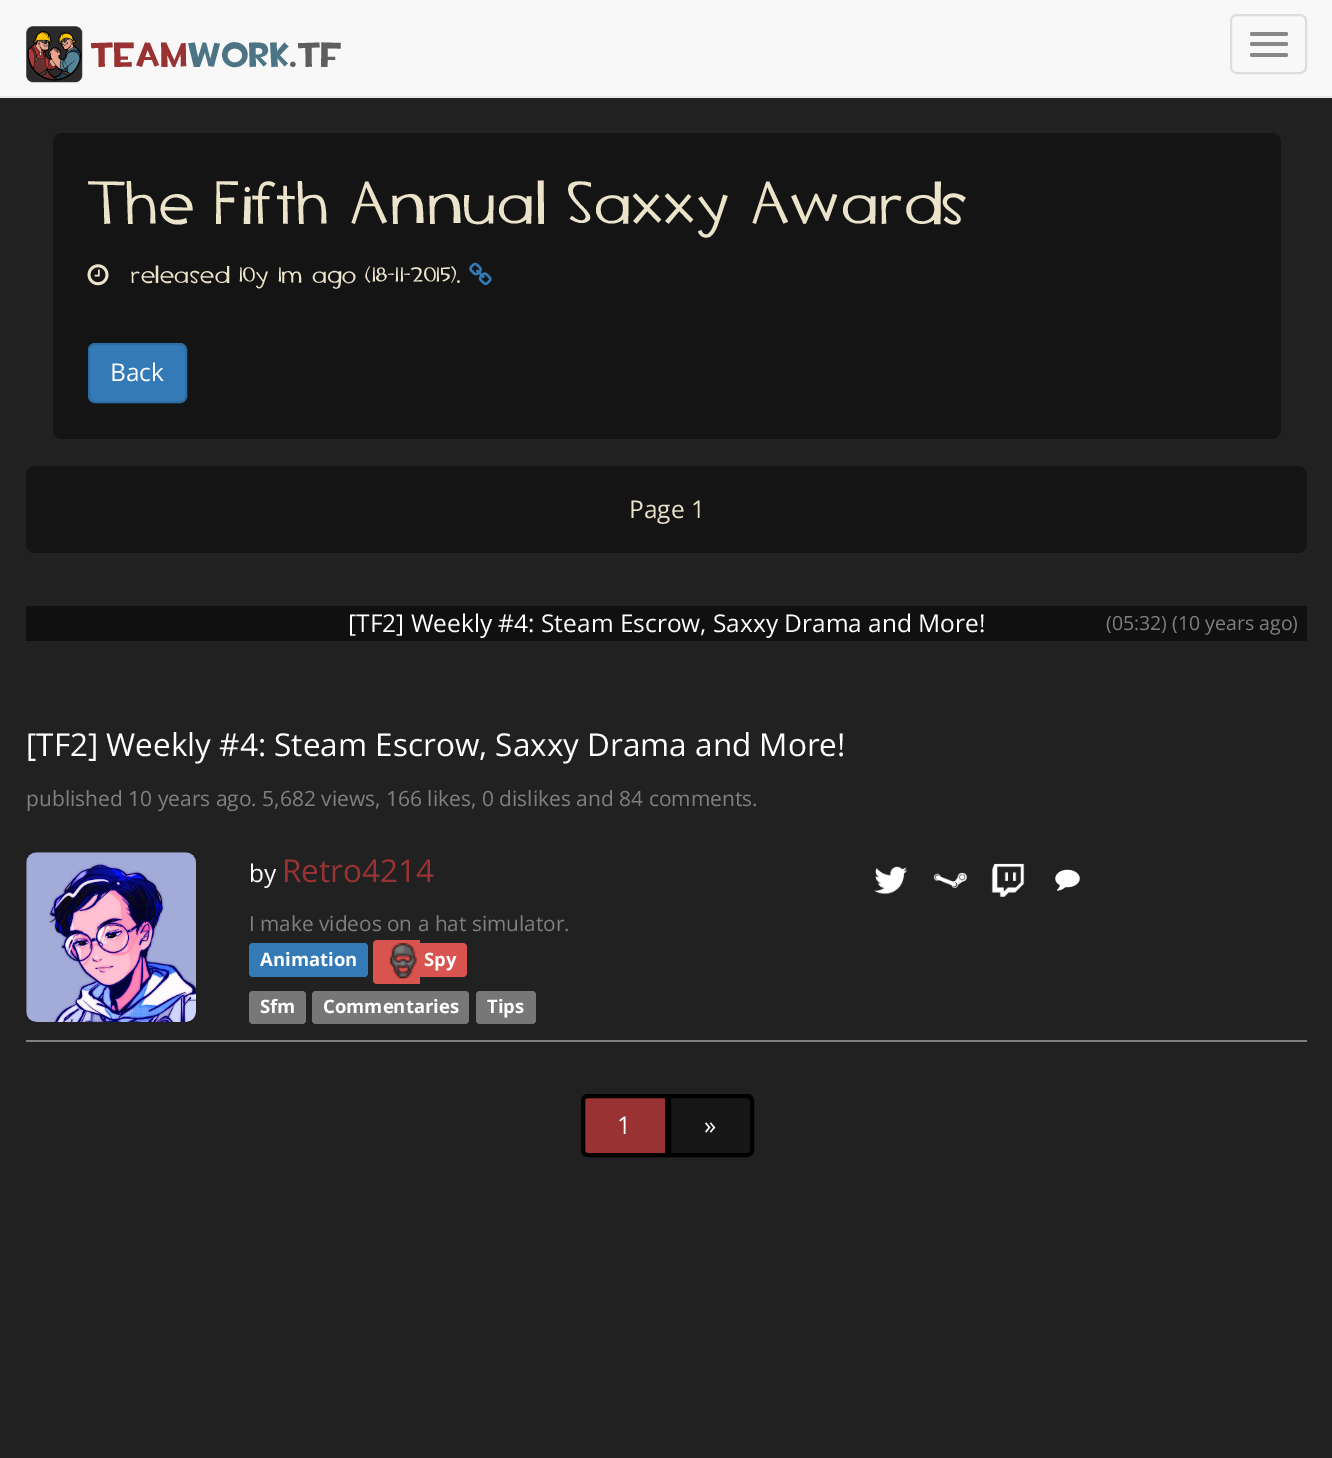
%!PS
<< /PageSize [1332 1458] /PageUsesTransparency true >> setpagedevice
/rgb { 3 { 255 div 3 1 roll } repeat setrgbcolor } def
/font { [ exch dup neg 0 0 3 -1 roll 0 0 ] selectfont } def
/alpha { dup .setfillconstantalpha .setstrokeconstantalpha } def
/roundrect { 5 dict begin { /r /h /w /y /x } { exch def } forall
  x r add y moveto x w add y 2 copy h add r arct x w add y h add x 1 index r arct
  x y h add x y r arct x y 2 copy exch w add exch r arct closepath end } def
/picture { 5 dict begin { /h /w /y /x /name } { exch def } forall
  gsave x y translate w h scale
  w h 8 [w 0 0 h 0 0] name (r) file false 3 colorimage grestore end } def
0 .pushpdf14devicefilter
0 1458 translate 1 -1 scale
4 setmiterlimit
33 33 33 rgb
0 0 1332 1458 rectfill
248 248 248 rgb
0 0 1332 96 rectfill
231 231 231 rgb
0 96 1332 2 rectfill
(img/1.rgb) 26 26 57 57 picture
221 221 221 rgb
2 setlinewidth
1231 15 75 58 6 roundrect stroke
136 136 136 rgb
1250 32 38 4 2 roundrect fill
1250 42 38 4 2 roundrect fill
1250 53 38 4 2 roundrect fill
20 20 20 rgb
53 133 1228 306 9 roundrect fill
(img/2.rgb) 87 264 22 22 picture
(img/3.rgb) 469 262 23 23 picture
51 122 183 rgb
89 344 97 58 6 roundrect gsave fill grestore
46 109 164 rgb
stroke
20 20 20 rgb
26 466 1281 87 9 roundrect fill
(img/4.rgb) 26 852 170 170 picture
(img/5.rgb) 874 866 34 29 picture
(img/6.rgb) 933 872 34 17 picture
(img/7.rgb) 991 863 34 34 picture
(img/8.rgb) 1055 869 25 22 picture
51 122 183 rgb
249 943 119 34 4 roundrect fill
217 83 79 rgb
377 940 moveto 420 940 lineto 420 984 lineto 377 984 lineto 375 984 373 982 373 980 curveto 373 944 lineto 373 942 375 940 377 940 curveto closepath fill
(img/9.rgb) 389 943 28 36 picture
420 943 moveto 463 943 lineto 465 943 467 945 467 947 curveto 467 973 lineto 467 975 465 977 463 977 curveto 420 977 lineto closepath fill
119 119 119 rgb
249 991 57 33 4 roundrect fill
312 991 157 33 4 roundrect fill
476 991 60 33 4 roundrect fill
128 128 128 rgb
26 1040 1281 2 rectfill
23 23 23 rgb
669 1096 moveto 747 1096 lineto 750 1096 752 1098 752 1101 curveto 752 1150 lineto 752 1153 750 1155 747 1155 curveto 669 1155 lineto closepath gsave fill grestore
0 0 0 rgb
4 setlinewidth
stroke
153 50 50 rgb
588 1096 moveto 667 1096 lineto 667 1155 lineto 588 1155 lineto 585 1155 583 1153 583 1150 curveto 583 1101 lineto 583 1098 585 1096 588 1096 curveto closepath gsave fill grestore
0 0 0 rgb
stroke
/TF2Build-Regular 35 font
153 50 50 rgb
91 67 moveto (team) show
76 116 133 rgb
188 67 moveto (work) show
94 94 94 rgb
290 67 moveto (.tf) show
/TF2-Regular 61.25 font
236 227 203 rgb
88 224 moveto (The Fifth Annual Saxxy Awards) show
/TF2-Regular 24.5 font
131 283 moveto (released 10y 1m ago \(18-11-2015\).) show
/OpenSans-Regular 24.5 font
255 255 255 rgb
110 381 moveto (Back) show
236 227 203 rgb
629 518 moveto (Page 1) show
/OpenSans-Regular 19.5 font
255 255 255 rgb
1106 630 moveto (\(05:32\) \(10 years ago\)) show
0.5 alpha
0 0 0 rgb
26 606 1281 35 rectfill
/OpenSans-Regular 24.5 font
1 alpha
255 255 255 rgb
348 632 moveto ([TF2] Weekly #4: Steam Escrow, Saxxy Drama and More!) show
/OpenSans-Regular 31.5 font
26 756 moveto ([TF2] Weekly #4: Steam Escrow, Saxxy Drama and More!) show
/OpenSans-Regular 21 font
128 128 128 rgb
26 806 moveto (published 10 years ago. 5,682 views, 166 likes, 0 dislikes and 84 comments.) show
/OpenSans-Regular 24.5 font
255 255 255 rgb
249 882 moveto (by) show
/OpenSans-Regular 31.5 font
153 50 50 rgb
282 882 moveto (Retro4214) show
/OpenSans-Regular 20.8 font
128 128 128 rgb
249 931 moveto (I make videos on a hat simulator.) show
/OpenSans-Bold 18.5 font
255 255 255 rgb
[
  [(Animation) 260 966]
  [(Spy) 424 966]
  [(Sfm) 260 1013]
  [(Commentaries) 323 1013]
  [(Tips) 487 1013]
] { aload pop moveto show } forall
/OpenSans-Regular 24.5 font
617 1134 moveto (1) show
704 1134 moveto (») show
.poppdf14devicefilter showpage
